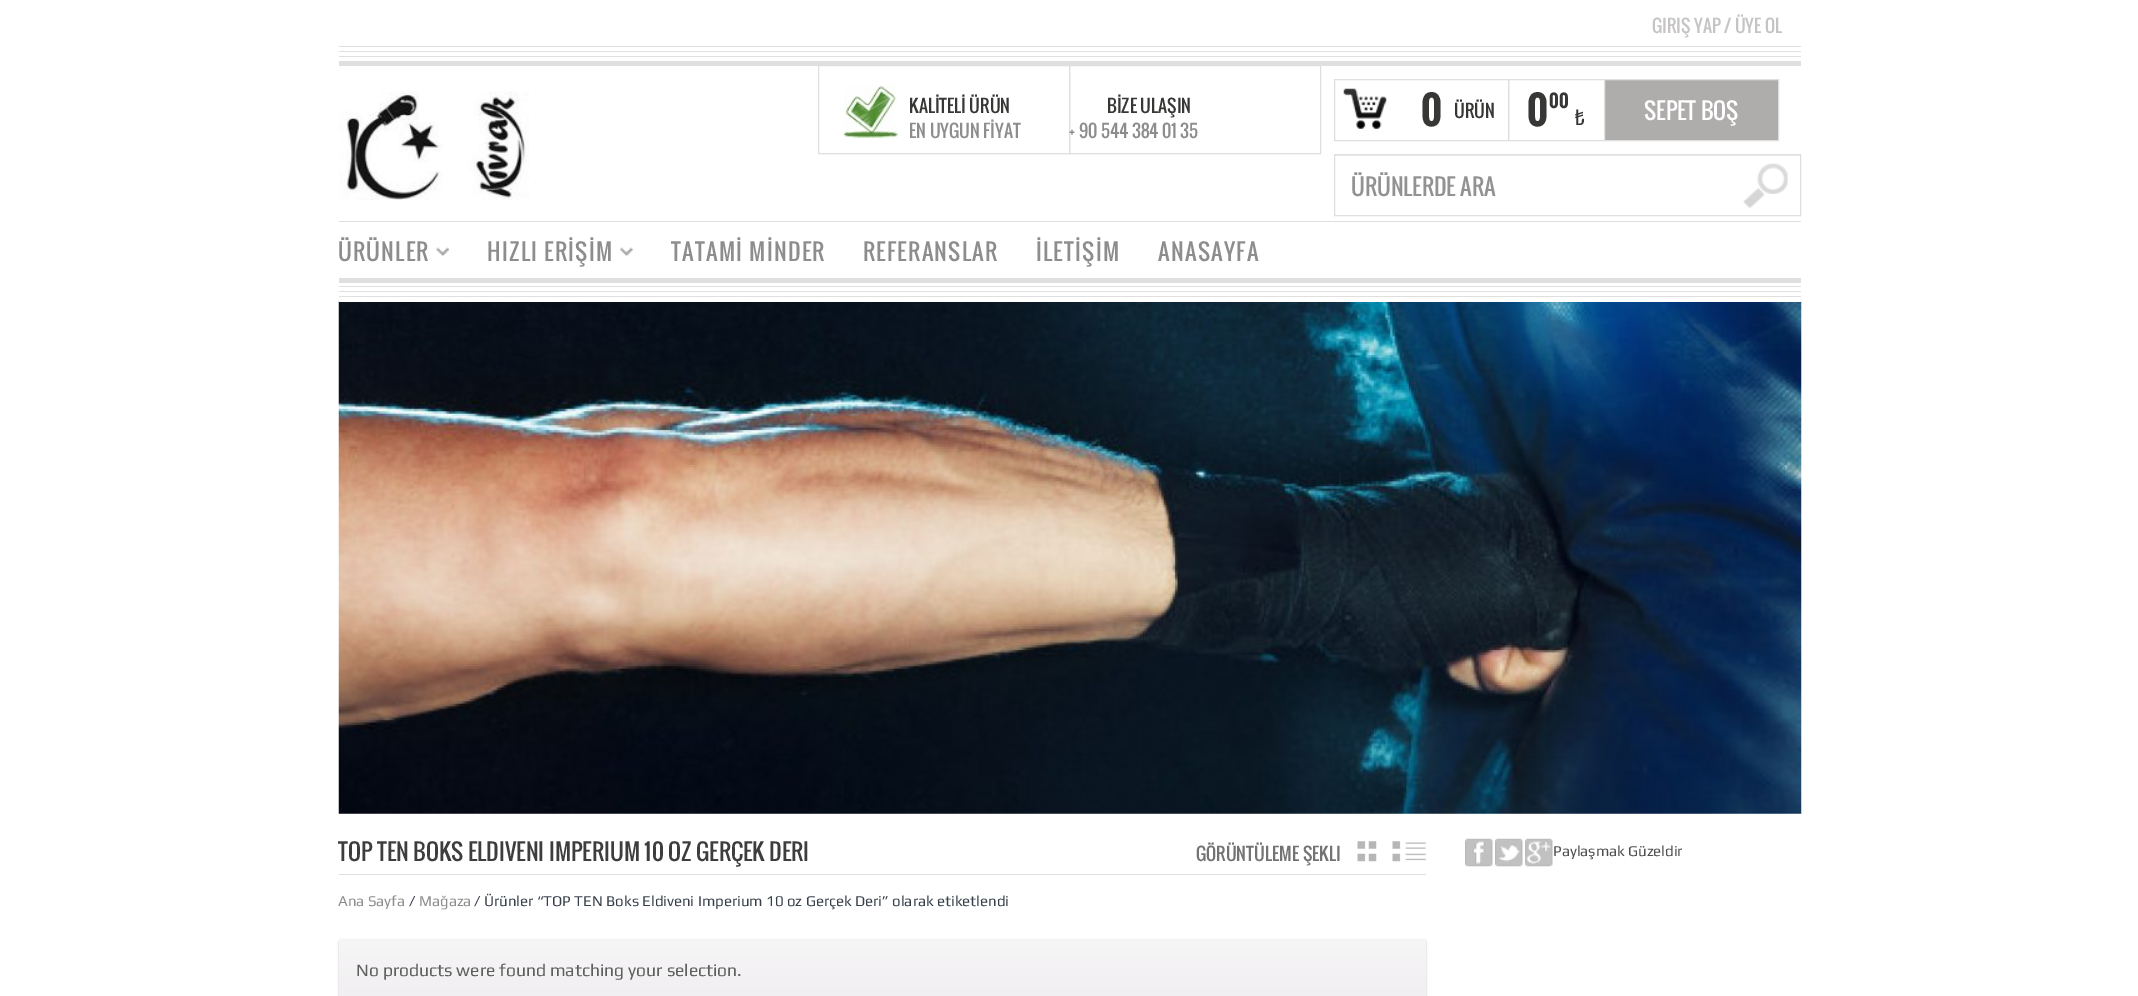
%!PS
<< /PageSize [2138 996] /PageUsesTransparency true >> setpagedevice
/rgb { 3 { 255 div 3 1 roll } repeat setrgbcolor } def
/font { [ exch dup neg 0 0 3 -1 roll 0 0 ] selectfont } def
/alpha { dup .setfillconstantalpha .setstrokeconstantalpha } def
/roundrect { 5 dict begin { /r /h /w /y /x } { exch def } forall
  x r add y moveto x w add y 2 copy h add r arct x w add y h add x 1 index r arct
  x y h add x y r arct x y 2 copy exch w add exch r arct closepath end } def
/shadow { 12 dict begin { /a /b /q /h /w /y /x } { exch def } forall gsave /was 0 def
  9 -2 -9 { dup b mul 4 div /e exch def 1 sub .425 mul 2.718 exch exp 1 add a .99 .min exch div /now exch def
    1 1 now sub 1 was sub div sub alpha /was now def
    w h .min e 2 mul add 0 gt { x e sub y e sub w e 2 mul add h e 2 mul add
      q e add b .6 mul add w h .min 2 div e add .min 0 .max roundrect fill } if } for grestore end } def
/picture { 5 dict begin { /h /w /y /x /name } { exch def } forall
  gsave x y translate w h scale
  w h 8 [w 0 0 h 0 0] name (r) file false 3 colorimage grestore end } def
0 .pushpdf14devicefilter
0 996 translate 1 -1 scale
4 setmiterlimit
255 255 255 rgb
0 0 2138 996 rectfill
[
  [339 46 1462 1 224 223 223]
  [339 51 1462 1 224 223 223]
  [339 56 1462 1 224 223 223]
  [339 61 1462 5 224 223 223]
] { aload pop rgb rectfill } forall
(img/1.rgb) 339 91 190 109 picture
818.5 65.5 251 88 rectstroke
(img/2.rgb) 843 85 55 54 picture
1069.5 65.5 251 88 rectstroke
(img/3.rgb) 1343 88 44 41 picture
1334.5 79.5 174 61 rectstroke
1508.5 79.5 96 61 rectstroke
175 172 172 rgb
1604.5 79.5 moveto 1778.5 79.5 lineto 1778.5 140.5 lineto 1604.5 140.5 lineto closepath gsave fill grestore
224 223 223 rgb
stroke
(img/4.rgb) 1743 163 45 45 picture
236 236 236 rgb
1335 155 465 1 rectfill
224 223 223 rgb
1334.5 154.5 466 61 rectstroke
339 221 1462 1 rectfill
(img/5.rgb) 436 247 14 10 picture
(img/6.rgb) 620 247 14 10 picture
[
  [339 278 1462 5 224 223 223]
  [339 286 1462 1 224 223 223]
  [339 291 1462 1 224 223 223]
] { aload pop rgb rectfill } forall
(img/7.rgb) 338 301 1464 513 picture
[
  [339 301 1462 1 255 255 255]
  [339 296 1462 1 224 223 223]
  [339 874 1087 1 224 223 223]
] { aload pop rgb rectfill } forall
(img/8.rgb) 1357 841 20 21 picture
(img/9.rgb) 1392 841 35 21 picture
0 0 0 rgb
339 940 1087 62 2.5 1 0.25 shadow
gsave 339 939 1087 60 2.5 roundrect clip newpath
<< /ShadingType 2 /ColorSpace /DeviceRGB /Coords [883 939 883 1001] /Extend [true true] /Function << /FunctionType 2 /Domain [0 1] /C0 [0.969 0.965 0.969] /C1 [0.941 0.933 0.941] /N 1 >> >> shfill grestore
(img/10.rgb) 1465 838 28 29 picture
(img/11.rgb) 1495 838 28 29 picture
(img/12.rgb) 1525 838 28 29 picture
/Oswald-Regular 17.5 font
197 195 195 rgb
1652 33 moveto (GIRIŞ YAP / ÜYE OL) show
55 55 54 rgb
909 113 moveto (KALİTELİ ÜRÜN) show
141 141 141 rgb
909 138 moveto (EN UYGUN FİYAT) show
55 55 54 rgb
1107 113 moveto (BİZE ULAŞIN) show
141 141 141 rgb
1069 138 moveto (+ 90 544 384 01 35) show
/Oswald-Bold 38 font
55 55 54 rgb
1421 126 moveto (0) show
/Oswald-Regular 17.5 font
1454 118 moveto (ÜRÜN) show
/Oswald-Bold 38 font
1527 126 moveto (0) show
/Oswald-Bold 17.5 font
1549 108 moveto (00) show
/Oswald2-Regular 19 font
1575 125 moveto (₺) show
/Oswald-Regular 22.5 font
255 255 255 rgb
1644 120 moveto (SEPET BOŞ) show
147 146 146 rgb
1351 196 moveto (ÜRÜNLERDE ARA) show
141 141 141 rgb
338 261 moveto 1.25 0 (ÜRÜNLER) ashow
487 261 moveto 1.25 0 (HIZLI ERİŞİM) ashow
671 261 moveto 1.25 0 (TATAMİ MİNDER) ashow
863 261 moveto 1.25 0 (REFERANSLAR) ashow
1036 261 moveto 1.25 0 (İLETİŞİM) ashow
1158 261 moveto 1.25 0 (ANASAYFA) ashow
62 61 61 rgb
338 861 moveto (TOP TEN BOKS ELDIVENI IMPERIUM 10 OZ GERÇEK DERI) show
/Oswald-Regular 17.5 font
116 115 115 rgb
1196 861 moveto (GÖRÜNTÜLEME ŞEKLI) show
/Play-Regular 15 font
141 141 141 rgb
338 906 moveto (Ana Sayfa) show
54 63 74 rgb
409 906 moveto (/) show
141 141 141 rgb
419 906 moveto (Mağaza) show
54 63 74 rgb
474 906 moveto (/ Ürünler “TOP TEN Boks Eldiveni Imperium 10 oz Gerçek Deri” olarak etiketlendi) show
/Play-Regular 17.5 font
94 94 94 rgb
356 976 moveto (No products were found matching your selection.) show
/Play-Regular 15 font
79 77 77 rgb
1553 856 moveto (Paylaşmak Güzeldir) show
.poppdf14devicefilter showpage
